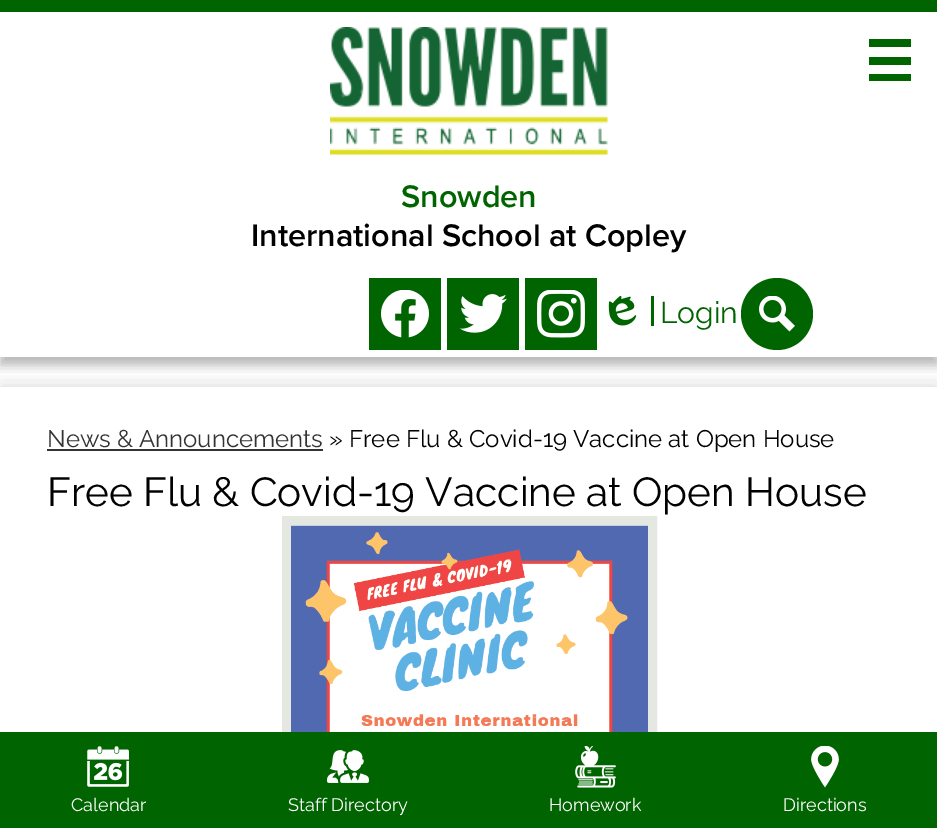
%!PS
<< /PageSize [937 828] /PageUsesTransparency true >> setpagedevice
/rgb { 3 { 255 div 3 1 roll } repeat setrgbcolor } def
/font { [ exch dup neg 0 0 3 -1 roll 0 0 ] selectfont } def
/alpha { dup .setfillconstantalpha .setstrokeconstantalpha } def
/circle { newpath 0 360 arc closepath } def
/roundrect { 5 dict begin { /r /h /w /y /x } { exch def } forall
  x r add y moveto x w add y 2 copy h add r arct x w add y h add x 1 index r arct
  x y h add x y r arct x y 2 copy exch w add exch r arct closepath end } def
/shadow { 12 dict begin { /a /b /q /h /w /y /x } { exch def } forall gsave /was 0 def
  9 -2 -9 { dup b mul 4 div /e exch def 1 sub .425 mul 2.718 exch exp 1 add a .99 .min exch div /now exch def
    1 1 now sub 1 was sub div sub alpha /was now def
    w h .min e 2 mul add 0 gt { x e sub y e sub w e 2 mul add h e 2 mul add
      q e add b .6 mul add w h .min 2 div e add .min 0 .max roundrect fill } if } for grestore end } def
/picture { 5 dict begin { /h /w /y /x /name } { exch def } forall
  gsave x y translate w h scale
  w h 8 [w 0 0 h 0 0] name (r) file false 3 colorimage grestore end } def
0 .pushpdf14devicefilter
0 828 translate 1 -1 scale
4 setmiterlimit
255 255 255 rgb
0 0 937 828 rectfill
gsave
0 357 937 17 rectclip
0 0 0 rgb
0 8 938 357 0 6 0.3 shadow
grestore
[
  [0 0 937 12 0 100 0]
  [869 39 42 8 0 100 0]
  [869 57 42 8 0 100 0]
  [869 74 42 7 0 100 0]
] { aload pop rgb rectfill } forall
(img/1.rgb) 330 27 278 128 picture
369 278 72 72 rectfill
(img/2.rgb) 381 290 48 48 picture
447 278 72 72 rectfill
(img/3.rgb) 459 294 48 39 picture
525 278 72 72 rectfill
(img/4.rgb) 537 290 48 48 picture
651 296 3 30 rectfill
(img/5.rgb) 608 296 29 30 picture
777 314 36 circle fill
(img/6.rgb) 759 296 36 36 picture
gsave
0 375 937 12 rectclip
0 0 0 rgb
0 387 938 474 0 11 0.15 shadow
grestore
51 51 51 rgb
47 449 276 2 rectfill
229 231 225 rgb
9 setlinewidth
286.5 520.5 366 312 rectstroke
(img/7.rgb) 291 525 357 207 picture
0 100 0 rgb
0 732 937 96 rectfill
(img/8.rgb) 87 746 42 41 picture
(img/9.rgb) 327 750 42 33 picture
(img/10.rgb) 575 746 41 42 picture
(img/11.rgb) 811 746 28 42 picture
/ProximaNova-SemiBold 32.4 font
401 207 moveto (Snowden) show
0 0 0 rgb
251 246 moveto (International School at Copley) show
/Raleway-Regular 30 font
0 100 0 rgb
660 323 moveto (Login) show
/Raleway-Regular 24 font
51 51 51 rgb
47 447 moveto (News & Announcements) show
0 0 0 rgb
329 447 moveto (» Free Flu & Covid-19 Vaccine at Open House) show
/Raleway-Regular 40.5 font
47 506 moveto (Free Flu & Covid-19 Vaccine at Open House) show
/Raleway-Regular 18 font
255 255 255 rgb
[
  [(Calendar) 71 811]
  [(Staff Directory) 288 811]
  [(Homework) 549 811]
  [(Directions) 783 811]
] { aload pop moveto show } forall
.poppdf14devicefilter showpage
